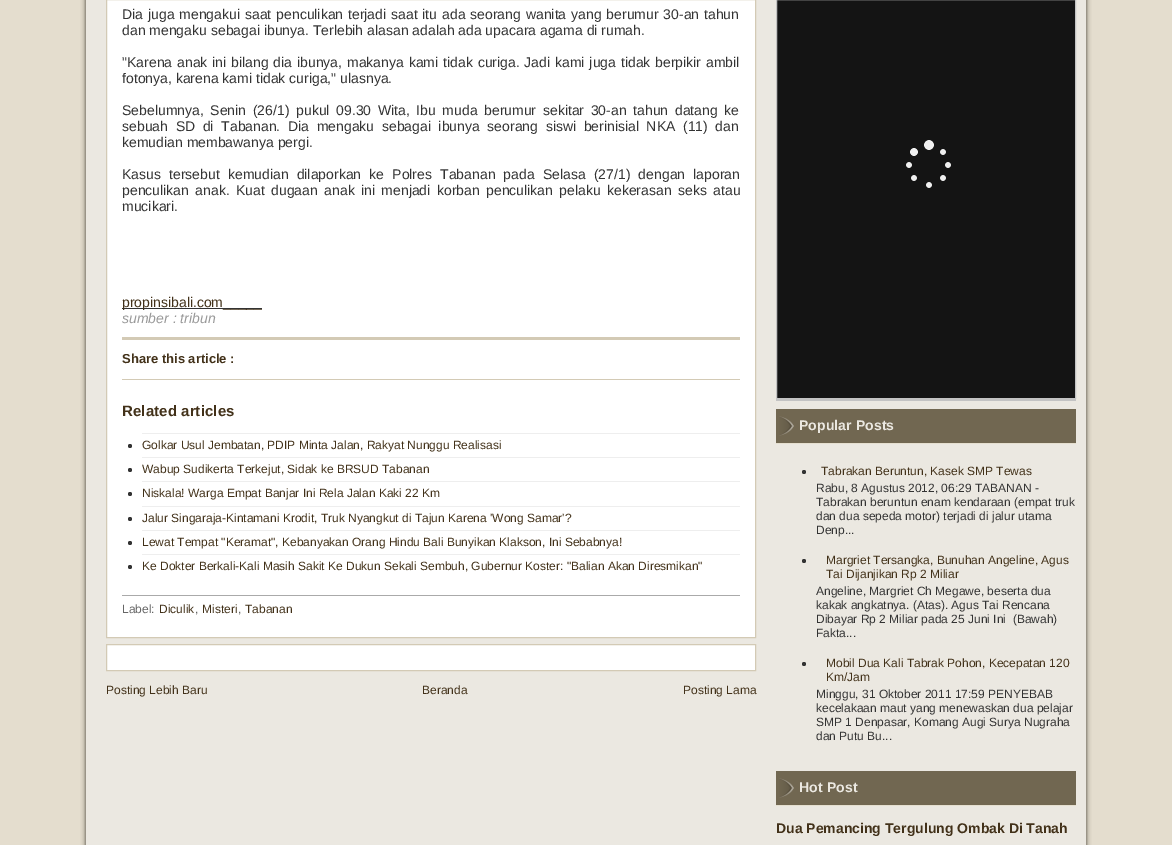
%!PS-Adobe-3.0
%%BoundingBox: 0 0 1172 845
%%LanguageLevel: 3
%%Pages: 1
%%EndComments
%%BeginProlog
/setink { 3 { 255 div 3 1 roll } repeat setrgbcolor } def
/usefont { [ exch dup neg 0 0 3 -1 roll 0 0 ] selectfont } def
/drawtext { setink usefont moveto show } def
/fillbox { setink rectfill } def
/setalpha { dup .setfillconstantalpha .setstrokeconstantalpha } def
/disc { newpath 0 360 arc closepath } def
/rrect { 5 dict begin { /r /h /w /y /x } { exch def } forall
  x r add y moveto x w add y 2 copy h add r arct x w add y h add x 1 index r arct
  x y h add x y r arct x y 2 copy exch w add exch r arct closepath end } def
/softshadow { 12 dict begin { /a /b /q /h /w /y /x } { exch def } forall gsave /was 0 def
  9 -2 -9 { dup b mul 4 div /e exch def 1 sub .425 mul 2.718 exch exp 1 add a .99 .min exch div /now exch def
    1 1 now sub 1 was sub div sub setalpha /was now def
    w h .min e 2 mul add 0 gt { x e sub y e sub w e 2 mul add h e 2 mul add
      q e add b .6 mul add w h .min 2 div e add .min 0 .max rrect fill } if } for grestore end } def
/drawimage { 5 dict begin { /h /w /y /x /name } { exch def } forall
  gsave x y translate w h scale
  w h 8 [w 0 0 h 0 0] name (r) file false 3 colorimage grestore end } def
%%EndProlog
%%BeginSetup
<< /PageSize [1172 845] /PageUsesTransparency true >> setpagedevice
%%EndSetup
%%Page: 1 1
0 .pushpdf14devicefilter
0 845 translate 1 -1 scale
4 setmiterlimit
0 0 1172 845 228 221 206 fillbox
59 54 44 setink
86 -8 1000 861 0 2.5 1 softshadow
86 0 1000 845 235 232 225 fillbox
255 255 255 setink
106.5 -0.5 moveto 755.5 -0.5 lineto 755.5 637.5 lineto 106.5 637.5 lineto closepath gsave fill grestore
211 202 181 setink
stroke
/LiberationSans-Regular 14 usefont
51 51 51 setink
122 19 moveto 1 0 32 (Dia juga mengakui saat penculikan terjadi saat itu ada seorang wanita yang berumur 30-an tahun) widthshow
(dan mengaku sebagai ibunya. Terlebih alasan adalah ada upacara agama di rumah.) 122 35 /LiberationSans-Regular 14 51 51 51 drawtext
122 67 moveto 1 0 32 ("Karena anak ini bilang dia ibunya, makanya kami tidak curiga. Jadi kami juga tidak berpikir ambil) widthshow
(fotonya, karena kami tidak curiga," ulasnya.) 122 83 /LiberationSans-Regular 14 51 51 51 drawtext
122 115 moveto 2.75 0 32 (Sebelumnya, Senin \(26/1\) pukul 09.30 Wita, Ibu muda berumur sekitar 30-an tahun datang ke) widthshow
122 131 moveto 3.75 0 32 (sebuah SD di Tabanan. Dia mengaku sebagai ibunya seorang siswi berinisial NKA \(11\) dan) widthshow
(kemudian membawanya pergi.) 122 147 /LiberationSans-Regular 14 51 51 51 drawtext
122 179 moveto 4.25 0 32 (Kasus tersebut kemudian dilaporkan ke Polres Tabanan pada Selasa \(27/1\) dengan laporan) widthshow
122 195 moveto 2.5 0 32 (penculikan anak. Kuat dugaan anak ini menjadi korban penculikan pelaku kekerasan seks atau) widthshow
(mucikari.) 122 211 /LiberationSans-Regular 14 51 51 51 drawtext
122 308 140 1 51 51 51 fillbox
(propinsibali.com_____) 122 307 /LiberationSans-Regular 14 66 49 25 drawtext
(sumber : tribun) 122 323 /LiberationSans-Italic 14 153 153 153 drawtext
122 337 618 3 211 202 181 fillbox
122 379 618 1 211 202 181 fillbox
(Share this article :) 122 363 /LiberationSans-Bold 13 66 49 25 drawtext
122 595 618 1 170 170 170 fillbox
/LiberationSans-Bold 15 usefont
66 49 25 setink
122 416 moveto 0.1 0 (Related articles) ashow
142 433 598 1 238 238 238 fillbox
51 51 51 setink
130 446 2 disc fill
(Golkar Usul Jembatan, PDIP Minta Jalan, Rakyat Nunggu Realisasi) 142 449 /LiberationSans-Regular 12 66 49 25 drawtext
142 457 598 1 238 238 238 fillbox
51 51 51 setink
130 470 2 disc fill
(Wabup Sudikerta Terkejut, Sidak ke BRSUD Tabanan) 142 473 /LiberationSans-Regular 12 66 49 25 drawtext
142 481 598 1 238 238 238 fillbox
51 51 51 setink
130 494 2 disc fill
(Niskala! Warga Empat Banjar Ini Rela Jalan Kaki 22 Km) 142 497 /LiberationSans-Regular 12 66 49 25 drawtext
142 506 598 1 238 238 238 fillbox
51 51 51 setink
130 519 2 disc fill
(Jalur Singaraja-Kintamani Krodit, Truk Nyangkut di Tajun Karena 'Wong Samar'?) 142 522 /LiberationSans-Regular 12 66 49 25 drawtext
142 530 598 1 238 238 238 fillbox
51 51 51 setink
130 543 2 disc fill
(Lewat Tempat "Keramat", Kebanyakan Orang Hindu Bali Bunyikan Klakson, Ini Sebabnya!) 142 546 /LiberationSans-Regular 12 66 49 25 drawtext
142 554 598 1 238 238 238 fillbox
51 51 51 setink
130 567 2 disc fill
(Ke Dokter Berkali-Kali Masih Sakit Ke Dukun Sekali Sembuh, Gubernur Koster: "Balian Akan Diresmikan") 142 570 /LiberationSans-Regular 12 66 49 25 drawtext
(Label:) 122 613 /LiberationSans-Regular 12 102 102 102 drawtext
(Diculik) 159 613 /LiberationSans-Regular 12 66 49 25 drawtext
(,) 195 613 /LiberationSans-Regular 12 102 102 102 drawtext
(Misteri) 202 613 /LiberationSans-Regular 12 66 49 25 drawtext
(,) 238 613 /LiberationSans-Regular 12 102 102 102 drawtext
(Tabanan) 245 613 /LiberationSans-Regular 12 66 49 25 drawtext
255 255 255 setink
106.5 644.5 moveto 755.5 644.5 lineto 755.5 670.5 lineto 106.5 670.5 lineto closepath gsave fill grestore
211 202 181 setink
stroke
(Posting Lebih Baru) 106 694 /LiberationSans-Regular 12 66 49 25 drawtext
(Beranda) 422 694 /LiberationSans-Regular 12 66 49 25 drawtext
(Posting Lama) 683 694 /LiberationSans-Regular 12 66 49 25 drawtext
777 0 298 398 20 20 20 fillbox
(assets/img1.rgb) 906 140 45 48 drawimage
195 195 195 setink
776.5 -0.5 299 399 rectstroke
776 399 300 2 195 195 195 fillbox
776 409 300 34 113 103 81 fillbox
(assets/img2.rgb) 779 416 15 20 drawimage
776 443 300 1 229 223 207 fillbox
/LiberationSans-Bold 14 usefont
235 232 225 setink
799 430 moveto 0.1 0 (Popular Posts) ashow
51 51 51 setink
804 472 2 disc fill
(Tabrakan Beruntun, Kasek SMP Tewas) 821 475 /LiberationSans-Regular 12 66 49 25 drawtext
(Rabu, 8 Agustus 2012, 06:29 TABANAN -) 816 492 /LiberationSans-Regular 12 51 51 51 drawtext
(Tabrakan beruntun enam kendaraan \(empat truk) 816 506 /LiberationSans-Regular 12 51 51 51 drawtext
(dan dua sepeda motor\) terjadi di jalur utama) 816 520 /LiberationSans-Regular 12 51 51 51 drawtext
(Denp...) 816 534 /LiberationSans-Regular 12 51 51 51 drawtext
804 561 2 disc fill
(Margriet Tersangka, Bunuhan Angeline, Agus) 826 564 /LiberationSans-Regular 12 66 49 25 drawtext
(Tai Dijanjikan Rp 2 Miliar) 826 578 /LiberationSans-Regular 12 66 49 25 drawtext
(Angeline, Margriet Ch Megawe, beserta dua) 816 595 /LiberationSans-Regular 12 51 51 51 drawtext
(kakak angkatnya. \(Atas\). Agus Tai Rencana) 816 609 /LiberationSans-Regular 12 51 51 51 drawtext
(Dibayar Rp 2 Miliar pada 25 Juni Ini  \(Bawah\)) 816 623 /LiberationSans-Regular 12 51 51 51 drawtext
(Fakta...) 816 637 /LiberationSans-Regular 12 51 51 51 drawtext
804 664 2 disc fill
(Mobil Dua Kali Tabrak Pohon, Kecepatan 120) 826 667 /LiberationSans-Regular 12 66 49 25 drawtext
(Km/Jam) 826 681 /LiberationSans-Regular 12 66 49 25 drawtext
(Minggu, 31 Oktober 2011 17:59 PENYEBAB) 816 698 /LiberationSans-Regular 12 51 51 51 drawtext
(kecelakaan maut yang menewaskan dua pelajar) 816 712 /LiberationSans-Regular 12 51 51 51 drawtext
(SMP 1 Denpasar, Komang Augi Surya Nugraha) 816 726 /LiberationSans-Regular 12 51 51 51 drawtext
(dan Putu Bu...) 816 740 /LiberationSans-Regular 12 51 51 51 drawtext
776 771 300 34 113 103 81 fillbox
(assets/img2.rgb) 779 778 15 20 drawimage
776 805 300 1 229 223 207 fillbox
/LiberationSans-Bold 14 usefont
235 232 225 setink
799 792 moveto 0.1 0 (Hot Post) ashow
(Dua Pemancing Tergulung Ombak Di Tanah) 776 833 /LiberationSans-Bold 14 66 49 25 drawtext
.poppdf14devicefilter showpage
%%EOF
